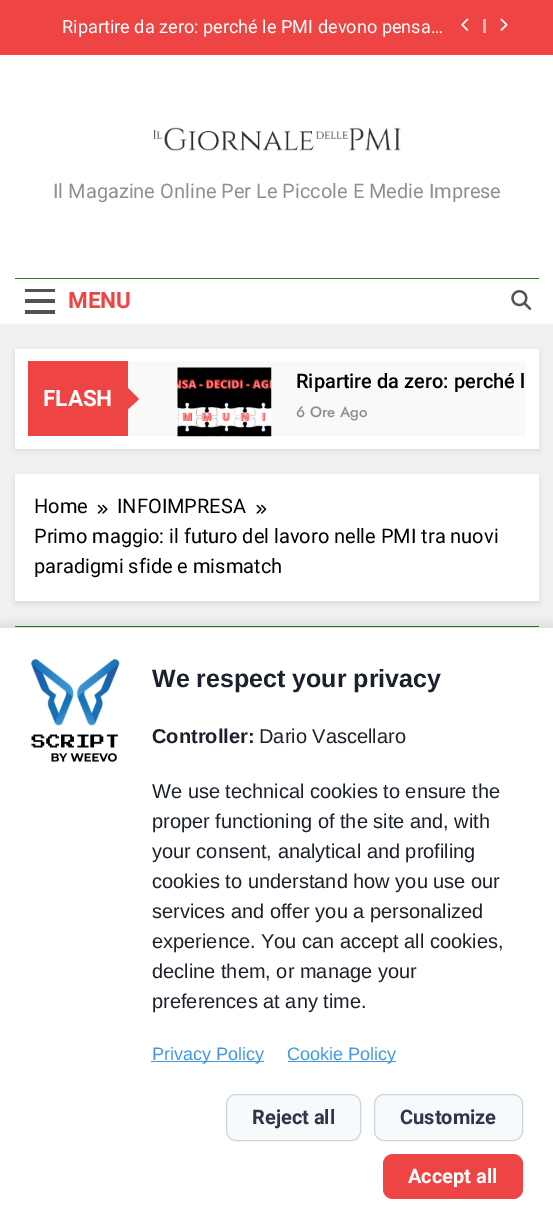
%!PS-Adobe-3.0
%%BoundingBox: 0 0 553 1230
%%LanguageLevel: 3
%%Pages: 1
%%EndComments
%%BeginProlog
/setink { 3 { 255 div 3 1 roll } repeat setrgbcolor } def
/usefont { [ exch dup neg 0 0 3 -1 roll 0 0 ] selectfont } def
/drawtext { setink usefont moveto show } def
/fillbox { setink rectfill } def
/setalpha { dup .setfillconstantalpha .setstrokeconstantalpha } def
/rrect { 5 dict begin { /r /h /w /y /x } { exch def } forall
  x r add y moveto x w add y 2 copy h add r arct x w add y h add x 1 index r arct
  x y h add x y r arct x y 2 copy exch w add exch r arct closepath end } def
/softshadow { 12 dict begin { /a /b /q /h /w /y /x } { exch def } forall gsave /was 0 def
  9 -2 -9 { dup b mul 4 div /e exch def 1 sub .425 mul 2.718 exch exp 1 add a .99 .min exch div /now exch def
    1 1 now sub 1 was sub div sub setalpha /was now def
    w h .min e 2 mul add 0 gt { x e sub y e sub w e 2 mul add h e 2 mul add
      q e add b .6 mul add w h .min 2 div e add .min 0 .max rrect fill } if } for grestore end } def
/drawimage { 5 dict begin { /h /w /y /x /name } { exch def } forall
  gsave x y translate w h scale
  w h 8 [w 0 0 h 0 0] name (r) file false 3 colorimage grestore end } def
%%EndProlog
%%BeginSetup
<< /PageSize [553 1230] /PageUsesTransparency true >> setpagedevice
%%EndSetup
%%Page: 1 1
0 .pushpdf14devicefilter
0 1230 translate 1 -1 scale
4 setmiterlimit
0 0 553 1230 240 241 242 fillbox
0 0 553 55 239 68 68 fillbox
(Ripartire da zero: perché le PMI devono pensa…) 62 33 /Roboto-Regular 18.15 255 255 255 drawtext
(assets/img1.rgb) 461 18 8 13 drawimage
483 19 3 14 249 180 180 fillbox
(assets/img2.rgb) 500 18 8 13 drawimage
0 55 553 269 255 255 255 fillbox
(assets/img3.rgb) 153 127 248 24 drawimage
(Il Magazine Online Per Le Piccole E Medie Imprese) 53 198 /Roboto-Regular 20 143 143 143 drawtext
15 278 524 1 27 132 21 fillbox
25 289 30 3 82 82 82 fillbox
25 299 30 4 82 82 82 fillbox
25 310 30 4 82 82 82 fillbox
(MENU) 68 308 /Roboto-Bold 22.5 239 68 68 drawtext
(assets/img4.rgb) 511 290 21 20 drawimage
0 0 0 setink
15 351 524 100 0 2.5 0.08 softshadow
15 349 524 100 255 255 255 fillbox
28 361 100 75 239 68 68 fillbox
(FLASH) 43 406 /Roboto-Bold 22.5 255 255 255 drawtext
128 361 398 75 249 249 249 fillbox
239 68 68 setink
126 411 moveto 126 386 lineto 139 399 lineto closepath fill
(assets/img5.rgb) 177 367 95 70 drawimage
(Ripartire da zero: perché l) 296 388 /Roboto-Medium 20 0 0 0 drawtext
(6 Ore Ago) 296 417 /Jost-Medium 15 143 143 143 drawtext
0 0 0 setink
15 476 524 128 0 2.5 0.08 softshadow
15 474 524 127 255 255 255 fillbox
(Home) 34 513 /Roboto-Regular 20 0 0 0 drawtext
(assets/img6.rgb) 97 504 11 10 drawimage
(INFOIMPRESA) 117 513 /Roboto-Regular 20 0 0 0 drawtext
(assets/img7.rgb) 256 504 11 10 drawimage
(Primo maggio: il futuro del lavoro nelle PMI tra nuovi) 34 543 /Roboto-Regular 20 0 0 0 drawtext
(paradigmi sfide e mismatch) 34 573 /Roboto-Regular 20 0 0 0 drawtext
15 626 524 1 27 132 21 fillbox
0 0 0 setink
0 625 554 603 0 6 0.1 softshadow
0 628 553 602 255 255 255 fillbox
(assets/img8.rgb) 31 658 89 105 drawimage
(We respect your privacy) 152 687 /LiberationSans-Bold 25 26 32 44 drawtext
(Controller:) 152 743 /LiberationSans-Bold 20 26 32 44 drawtext
(Dario Vascellaro) 259 743 /LiberationSans-Regular 20 26 32 44 drawtext
(We use technical cookies to ensure the) 152 798 /LiberationSans-Regular 20 26 32 44 drawtext
(proper functioning of the site and, with) 152 828 /LiberationSans-Regular 20 26 32 44 drawtext
(your consent, analytical and profiling) 152 858 /LiberationSans-Regular 20 26 32 44 drawtext
(cookies to understand how you use our) 152 888 /LiberationSans-Regular 20 26 32 44 drawtext
(services and offer you a personalized) 152 918 /LiberationSans-Regular 20 26 32 44 drawtext
(experience. You can accept all cookies,) 152 948 /LiberationSans-Regular 20 26 32 44 drawtext
(decline them, or manage your) 152 978 /LiberationSans-Regular 20 26 32 44 drawtext
(preferences at any time.) 152 1008 /LiberationSans-Regular 20 26 32 44 drawtext
151 1061 113 1 66 153 225 fillbox
(Privacy Policy) 152 1060 /LiberationSans-Regular 18 66 153 225 drawtext
288 1061 108 1 66 153 225 fillbox
(Cookie Policy) 287 1060 /LiberationSans-Regular 18 66 153 225 drawtext
247 250 252 setink
226.5 1094.5 134 46 9.5 rrect gsave fill grestore
203 213 224 setink
stroke
(Reject all) 252 1124 /Roboto-Bold 20 45 55 72 drawtext
247 250 252 setink
374.5 1094.5 148 46 9.5 rrect gsave fill grestore
203 213 224 setink
stroke
(Customize) 400 1124 /Roboto-Bold 20 45 55 72 drawtext
239 68 68 setink
383 1154 140 45 10 rrect fill
(Accept all) 408 1183 /Roboto-Bold 20 255 255 255 drawtext
.poppdf14devicefilter showpage
%%EOF
